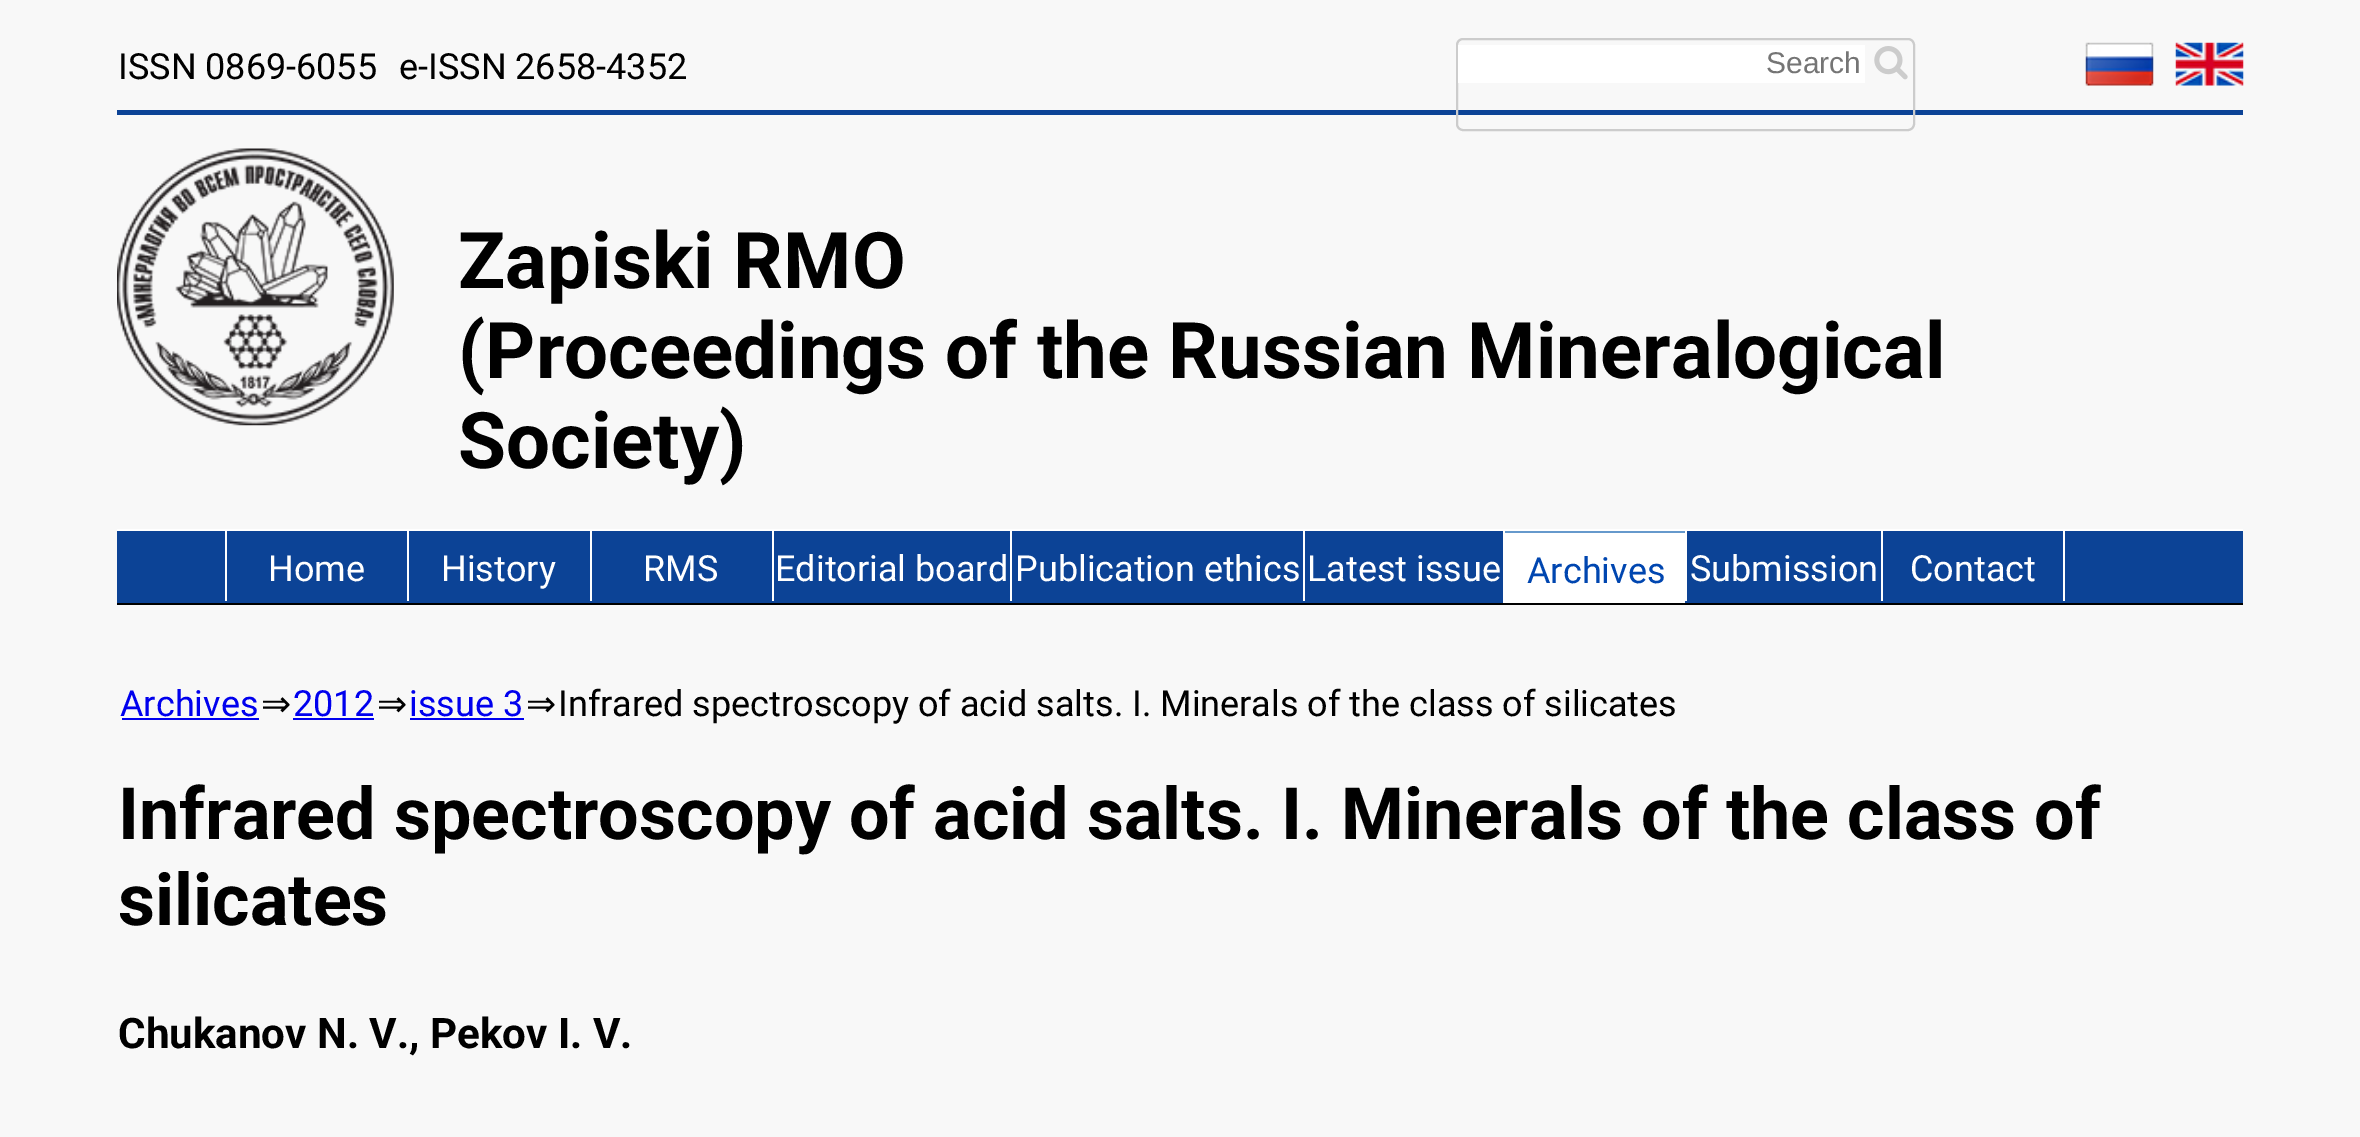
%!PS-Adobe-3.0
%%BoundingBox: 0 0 2360 1137
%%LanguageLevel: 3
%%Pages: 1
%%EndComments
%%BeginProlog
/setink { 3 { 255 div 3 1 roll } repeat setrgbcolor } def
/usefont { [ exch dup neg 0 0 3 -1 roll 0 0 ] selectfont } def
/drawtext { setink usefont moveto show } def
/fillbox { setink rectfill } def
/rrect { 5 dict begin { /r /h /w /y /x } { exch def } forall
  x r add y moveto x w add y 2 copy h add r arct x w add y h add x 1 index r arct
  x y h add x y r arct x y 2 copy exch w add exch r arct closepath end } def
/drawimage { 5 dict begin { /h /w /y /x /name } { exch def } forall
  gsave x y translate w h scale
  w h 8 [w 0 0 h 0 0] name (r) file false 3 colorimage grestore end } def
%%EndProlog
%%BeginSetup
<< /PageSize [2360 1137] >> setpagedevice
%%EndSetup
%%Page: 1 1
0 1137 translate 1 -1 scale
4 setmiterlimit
0 0 2360 1137 248 248 248 fillbox
(ISSN 0869-6055) 118 79 /Roboto-Regular 36 0 0 0 drawtext
(e-ISSN 2658-4352) 399 79 /Roboto-Regular 36 0 0 0 drawtext
117 110 2126 5 12 67 150 fillbox
204 204 204 setink
2 setlinewidth
1457 39 457 91 6 rrect stroke
1458 45 407 38 255 255 255 fillbox
(Search) 1766 73 /LiberationSans-Regular 30 117 117 117 drawtext
(assets/img1.rgb) 1874 46 34 34 drawimage
(assets/img2.rgb) 2085 42 69 44 drawimage
(assets/img3.rgb) 2175 42 69 44 drawimage
(assets/img4.rgb) 117 148 277 278 drawimage
(Zapiski RMO) 458 288 /Roboto-Bold 78 0 0 0 drawtext
(\(Proceedings of the Russian Mineralogical) 458 378 /Roboto-Bold 78 0 0 0 drawtext
(Society\)) 458 468 /Roboto-Bold 78 0 0 0 drawtext
117 531 2126 72 12 67 150 fillbox
117 529 2126 2 255 255 255 fillbox
117 603 2126 2 0 0 0 fillbox
225 531 2 70 255 255 255 fillbox
(Home) 268 581 /Roboto-Regular 36 255 255 255 drawtext
407 531 2 70 255 255 255 fillbox
(History) 441 581 /Roboto-Regular 36 255 255 255 drawtext
590 531 2 70 255 255 255 fillbox
(RMS) 643 581 /Roboto-Regular 36 255 255 255 drawtext
772 531 2 70 255 255 255 fillbox
(Editorial board) 775 581 /Roboto-Regular 36 255 255 255 drawtext
1010 531 2 70 255 255 255 fillbox
(Publication ethics) 1015 581 /Roboto-Regular 36 255 255 255 drawtext
1303 531 2 70 255 255 255 fillbox
(Latest issue) 1307 581 /Roboto-Regular 36 255 255 255 drawtext
1503 531 2 72 255 255 255 fillbox
1505 533 180 70 255 255 255 fillbox
1505 531 180 2 102 153 204 fillbox
(Archives) 1527 583 /Roboto-Regular 36 0 70 176 drawtext
1685 531 2 70 255 255 255 fillbox
(Submission) 1690 581 /Roboto-Regular 36 255 255 255 drawtext
2063 531 2 70 255 255 255 fillbox
1881 531 2 70 255 255 255 fillbox
(Contact) 1910 581 /Roboto-Regular 36 255 255 255 drawtext
(Archives) 120 716 /Roboto-Regular 36 0 0 238 drawtext
122 718 137 2 0 0 238 fillbox
(⇒) 261 716 /DejaVuSans-Regular 36 0 0 0 drawtext
(2012) 293 716 /Roboto-Regular 36 0 0 238 drawtext
293 718 81 2 0 0 238 fillbox
(⇒) 377 716 /DejaVuSans-Regular 36 0 0 0 drawtext
(issue 3) 409 716 /Roboto-Regular 36 0 0 238 drawtext
410 718 114 2 0 0 238 fillbox
(⇒) 526 716 /DejaVuSans-Regular 36 0 0 0 drawtext
(Infrared spectroscopy of acid salts. I. Minerals of the class of silicates) 558 716 /Roboto-Regular 36 0 0 0 drawtext
(Infrared spectroscopy of acid salts. I. Minerals of the class of) 118 839 /Roboto-Bold 72 0 0 0 drawtext
(silicates) 118 925 /Roboto-Bold 72 0 0 0 drawtext
(Chukanov N. V., Pekov I. V.) 118 1048 /Roboto-Bold 42.1 0 0 0 drawtext
showpage
%%EOF
